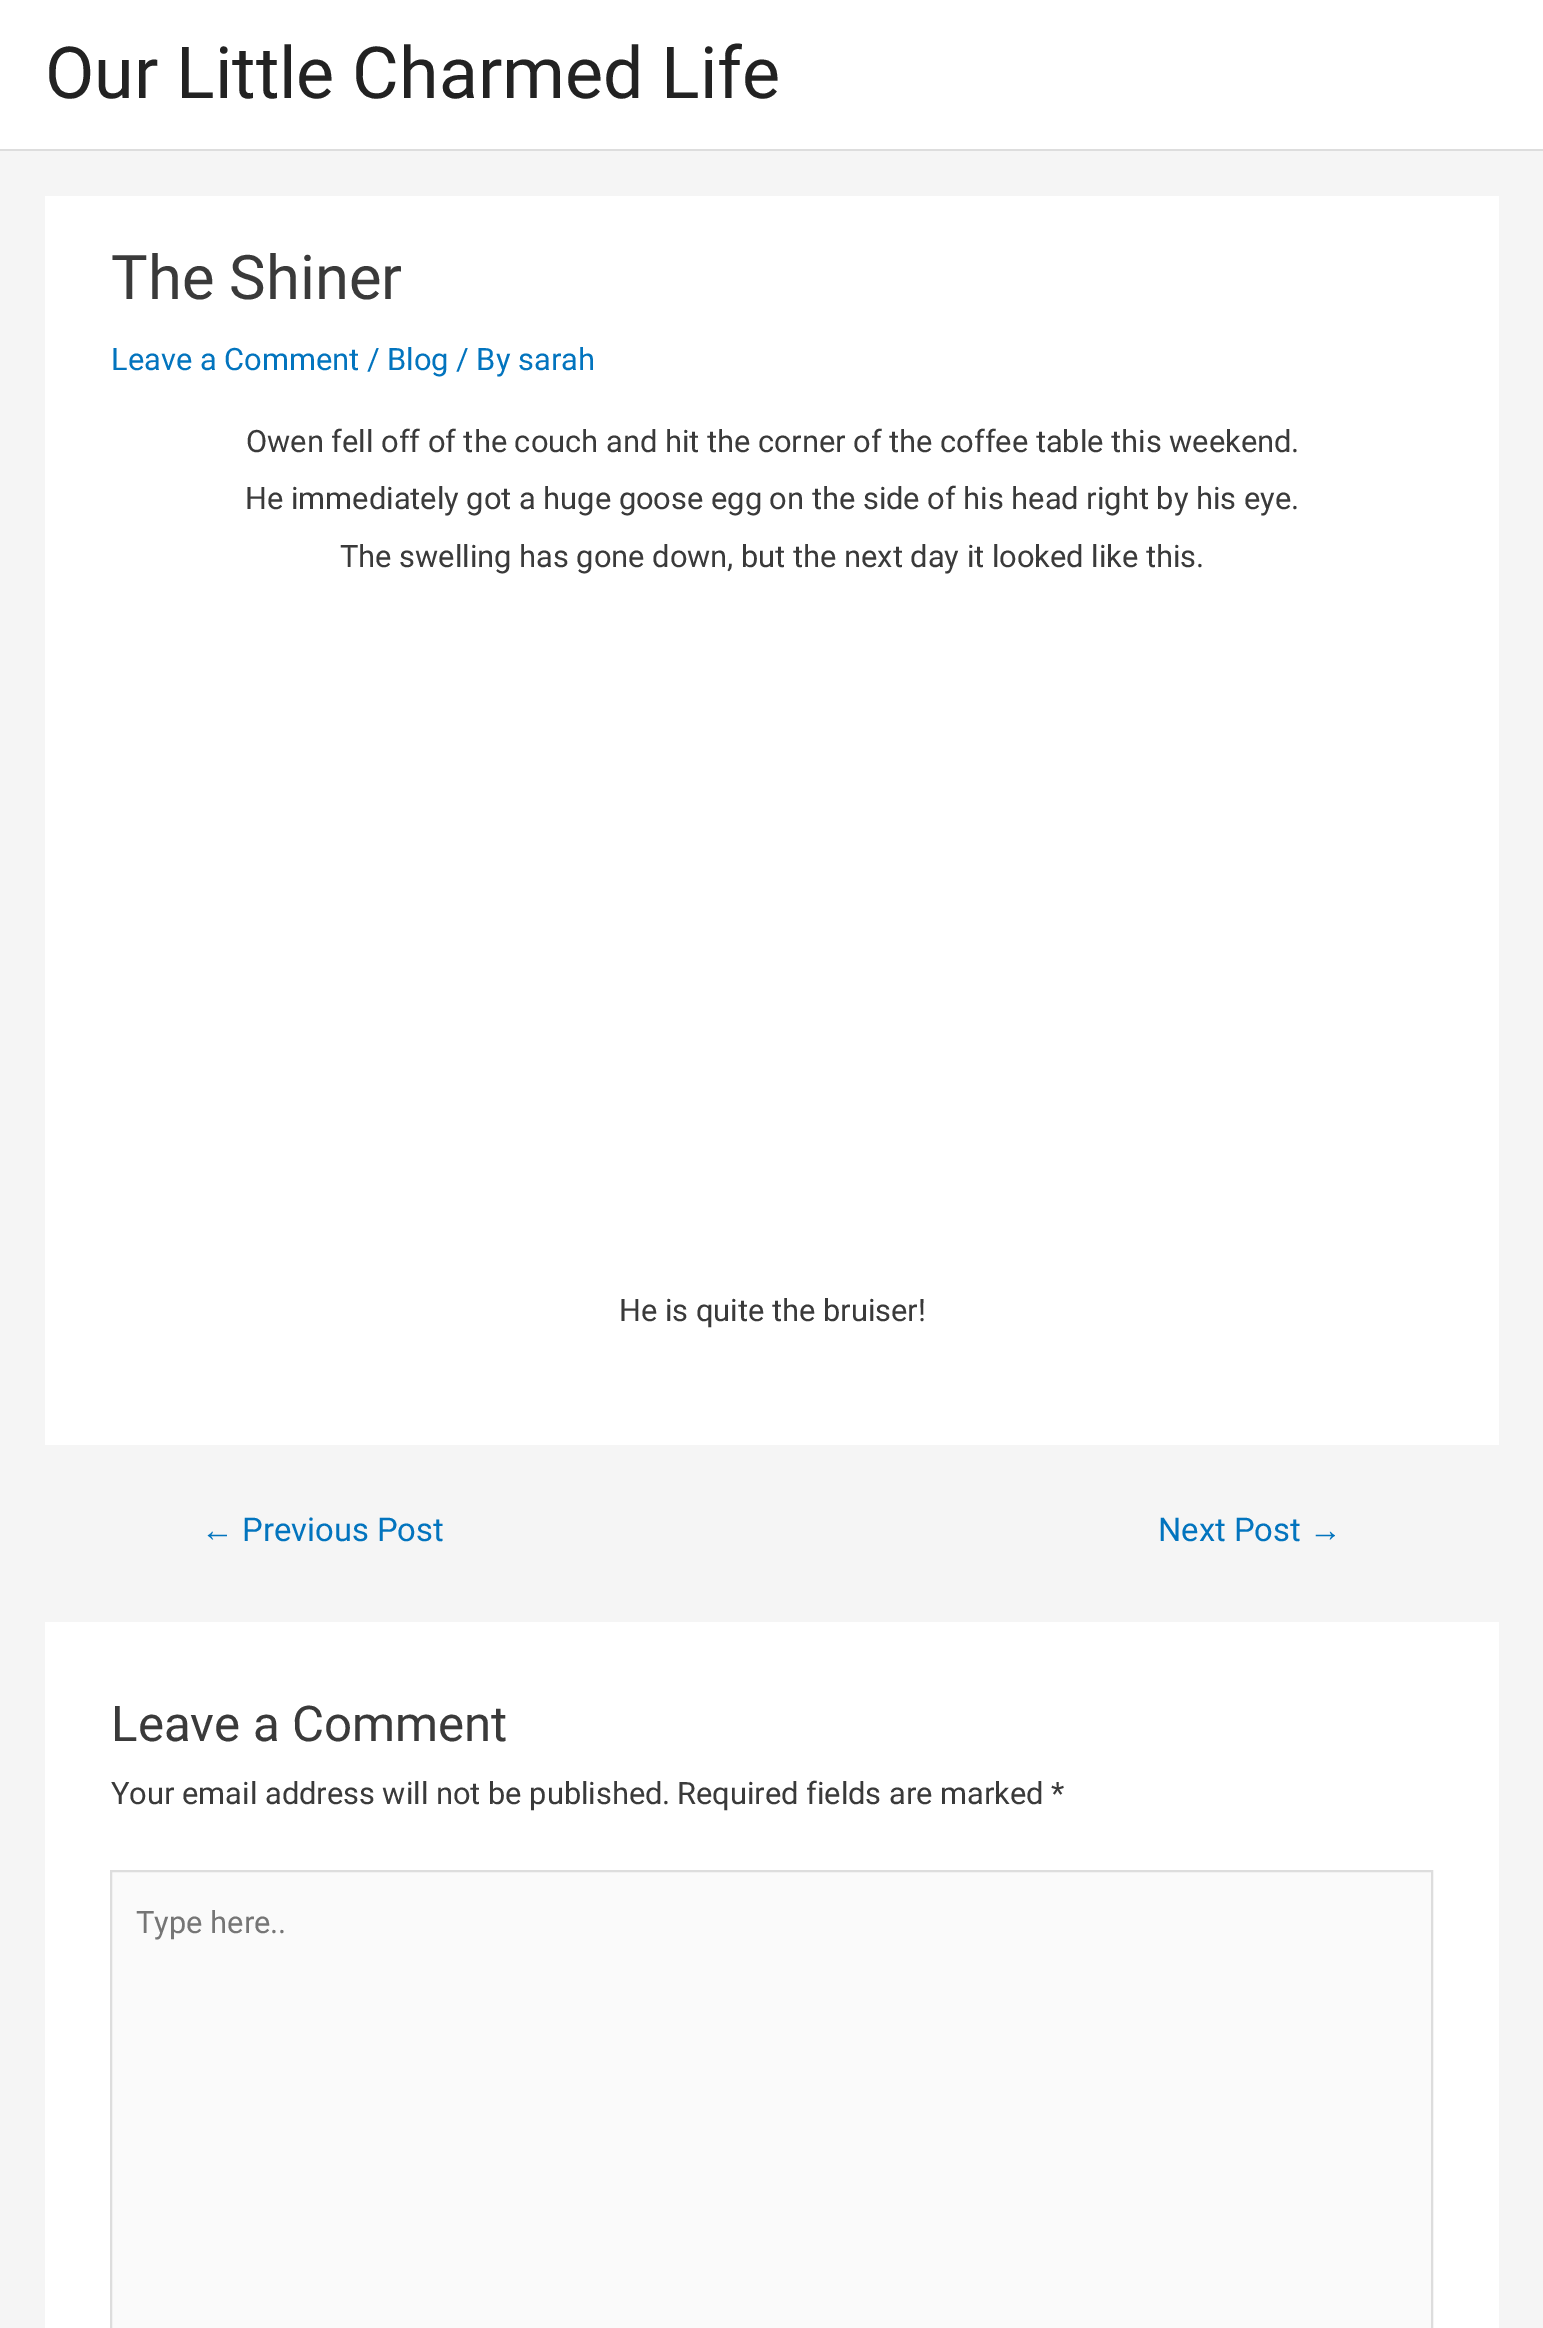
%!PS-Adobe-3.0
%%BoundingBox: 0 0 1543 2328
%%LanguageLevel: 3
%%Pages: 1
%%EndComments
%%BeginProlog
/setink { 3 { 255 div 3 1 roll } repeat setrgbcolor } def
/usefont { [ exch dup neg 0 0 3 -1 roll 0 0 ] selectfont } def
/drawtext { setink usefont moveto show } def
/fillbox { setink rectfill } def
%%EndProlog
%%BeginSetup
<< /PageSize [1543 2328] >> setpagedevice
%%EndSetup
%%Page: 1 1
0 2328 translate 1 -1 scale
4 setmiterlimit
0 0 1543 2328 245 245 245 fillbox
0 0 1543 149 255 255 255 fillbox
0 149 1543 2 221 221 221 fillbox
(Our Little Charmed Life) 45 98 /Roboto-Regular 71.75 34 34 34 drawtext
45 196 1454 1249 255 255 255 fillbox
(The Shiner) 111 299 /Roboto-Regular 61.5 58 58 58 drawtext
(Leave a Comment / Blog / By sarah) 111 370 /Roboto-Regular 30.8 2 116 190 drawtext
(Owen fell off of the couch and hit the corner of the coffee table this weekend.) 246 452 /Roboto-Regular 30.8 58 58 58 drawtext
(He immediately got a huge goose egg on the side of his head right by his eye.) 245 509 /Roboto-Regular 30.8 58 58 58 drawtext
(The swelling has gone down, but the next day it looked like this.) 340 567 /Roboto-Regular 30.8 58 58 58 drawtext
(He is quite the bruiser!) 619 1321 /Roboto-Regular 30.8 58 58 58 drawtext
(←) 201 1541 /LiberationSans-Regular 32.75 2 116 190 drawtext
(Previous Post) 242 1541 /Roboto-Regular 32.75 2 116 190 drawtext
(Next Post) 1158 1541 /Roboto-Regular 32.75 2 116 190 drawtext
(→) 1309 1541 /LiberationSans-Regular 32.75 2 116 190 drawtext
45 1622 1454 706 255 255 255 fillbox
(Leave a Comment) 111 1741 /Roboto-Regular 49.25 58 58 58 drawtext
(Your email address will not be published.) 111 1804 /Roboto-Regular 30.8 58 58 58 drawtext
(Required fields are marked *) 677 1804 /Roboto-Regular 30.8 58 58 58 drawtext
250 250 250 setink
111 1871 moveto 1432 1871 lineto 1432 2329 lineto 111 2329 lineto closepath gsave fill grestore
221 221 221 setink
2 setlinewidth
stroke
(Type here..) 136 1933 /Roboto-Regular 30.8 117 117 117 drawtext
showpage
%%EOF
